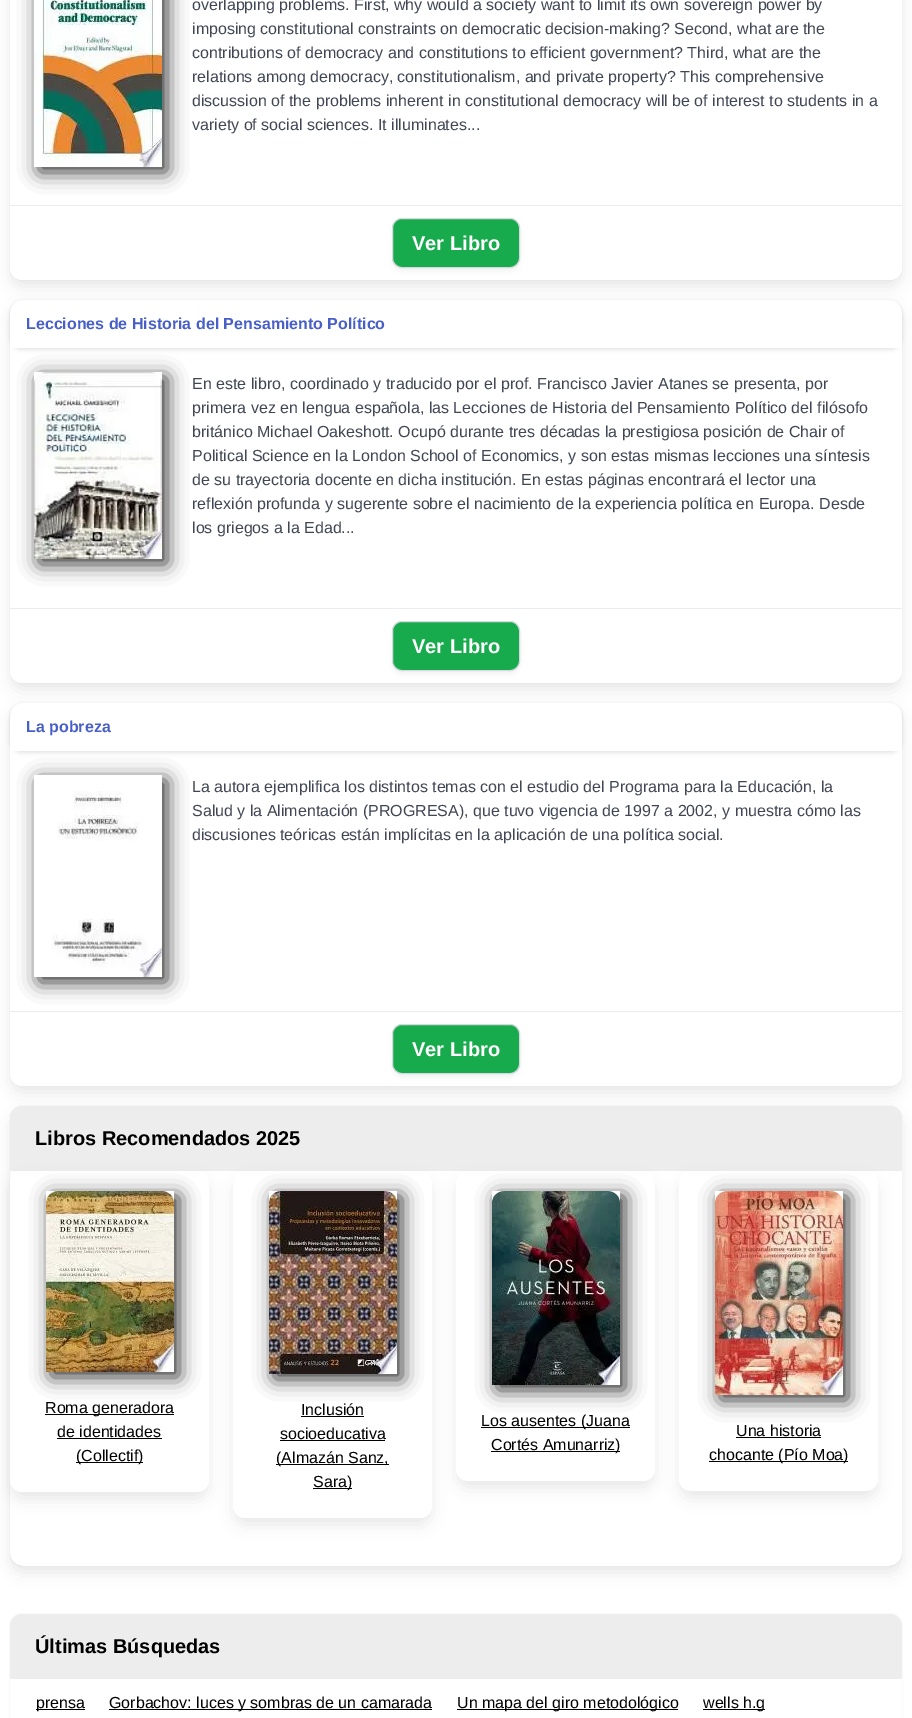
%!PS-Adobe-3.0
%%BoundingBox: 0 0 912 1718
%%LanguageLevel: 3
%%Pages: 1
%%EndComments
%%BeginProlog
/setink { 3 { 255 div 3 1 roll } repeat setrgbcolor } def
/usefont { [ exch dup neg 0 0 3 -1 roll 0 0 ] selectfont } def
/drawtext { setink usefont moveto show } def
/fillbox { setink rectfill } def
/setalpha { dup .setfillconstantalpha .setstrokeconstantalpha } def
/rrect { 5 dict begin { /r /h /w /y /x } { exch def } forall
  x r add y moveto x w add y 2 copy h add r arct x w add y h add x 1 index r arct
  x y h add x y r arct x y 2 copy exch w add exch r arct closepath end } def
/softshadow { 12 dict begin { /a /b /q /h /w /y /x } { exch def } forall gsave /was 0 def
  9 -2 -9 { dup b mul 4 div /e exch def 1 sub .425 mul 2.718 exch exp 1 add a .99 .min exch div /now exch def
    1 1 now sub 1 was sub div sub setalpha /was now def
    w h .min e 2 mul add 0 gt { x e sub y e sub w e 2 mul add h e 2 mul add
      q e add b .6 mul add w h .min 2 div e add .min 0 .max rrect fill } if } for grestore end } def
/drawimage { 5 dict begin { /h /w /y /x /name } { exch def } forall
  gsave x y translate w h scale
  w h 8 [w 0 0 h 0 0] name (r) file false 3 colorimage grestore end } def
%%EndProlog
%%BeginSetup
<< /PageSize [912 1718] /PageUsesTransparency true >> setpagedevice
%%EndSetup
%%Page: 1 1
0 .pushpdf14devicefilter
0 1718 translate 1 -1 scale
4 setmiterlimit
0 0 912 1718 255 255 255 fillbox
250 250 250 setink
9.5 -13.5 893 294 12.5 rrect stroke
9 10 12 setink
12 -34 888 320 10 8 0.1 softshadow
255 255 255 setink
10 -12 892 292 12 rrect fill
51 51 51 setink
39 -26 128 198 0 10 1 softshadow
(assets/img1.rgb) 34 0 128 167 drawimage
(overlapping problems. First, why would a society want to limit its own sovereign power by) 192 10 /LiberationSans-Regular 16 64 70 84 drawtext
(imposing constitutional constraints on democratic decision-making? Second, what are the) 192 34 /LiberationSans-Regular 16 64 70 84 drawtext
(contributions of democracy and constitutions to efficient government? Third, what are the) 192 58 /LiberationSans-Regular 16 64 70 84 drawtext
(relations among democracy, constitutionalism, and private property? This comprehensive) 192 82 /LiberationSans-Regular 16 64 70 84 drawtext
(discussion of the problems inherent in constitutional democracy will be of interest to students in a) 192 106 /LiberationSans-Regular 16 64 70 84 drawtext
(variety of social sciences. It illuminates...) 192 130 /LiberationSans-Regular 16 64 70 84 drawtext
10 205 892 1 235 236 240 fillbox
51 51 51 setink
392 221 128 50 10 2.5 0.05 softshadow
23 171 77 setink
392.5 218.5 127 49 9.5 rrect gsave fill grestore
214 217 224 setink
stroke
(Ver Libro) 412 250 /LiberationSans-Bold 20 255 255 255 drawtext
250 250 250 setink
9.5 299.5 893 384 12.5 rrect stroke
9 10 12 setink
12 310 888 379 10 8 0.1 softshadow
255 255 255 setink
10 300 892 383 12 rrect fill
gsave
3 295 moveto 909 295 lineto 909 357 lineto 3 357 lineto closepath 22 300 moveto 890 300 lineto 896.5 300 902 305.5 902 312 curveto 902 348 lineto 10 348 lineto 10 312 lineto 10 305.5 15.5 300 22 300 curveto closepath eoclip newpath
9 10 12 setink
10 302 892 48 12 2 0.1 softshadow
grestore
(Lecciones de Historia del Pensamiento Político) 26 329 /LiberationSans-Bold 16 72 95 199 drawtext
gsave
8 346 moveto 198 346 lineto 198 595 lineto 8 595 lineto closepath 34 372 moveto 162 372 lineto 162 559 lineto 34 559 lineto closepath eoclip newpath
51 51 51 setink
39 377 128 187 0 10 1 softshadow
grestore
(assets/img2.rgb) 34 372 128 187 drawimage
(En este libro, coordinado y traducido por el prof. Francisco Javier Atanes se presenta, por) 192 389 /LiberationSans-Regular 16 64 70 84 drawtext
(primera vez en lengua española, las Lecciones de Historia del Pensamiento Político del filósofo) 192 413 /LiberationSans-Regular 16 64 70 84 drawtext
(británico Michael Oakeshott. Ocupó durante tres décadas la prestigiosa posición de Chair of) 192 437 /LiberationSans-Regular 16 64 70 84 drawtext
(Political Science en la London School of Economics, y son estas mismas lecciones una síntesis) 192 461 /LiberationSans-Regular 16 64 70 84 drawtext
(de su trayectoria docente en dicha institución. En estas páginas encontrará el lector una) 192 485 /LiberationSans-Regular 16 64 70 84 drawtext
(reflexión profunda y sugerente sobre el nacimiento de la experiencia política en Europa. Desde) 192 509 /LiberationSans-Regular 16 64 70 84 drawtext
(los griegos a la Edad...) 192 533 /LiberationSans-Regular 16 64 70 84 drawtext
10 608 892 1 235 236 240 fillbox
51 51 51 setink
392 624 128 50 10 2.5 0.05 softshadow
23 171 77 setink
392.5 621.5 127 49 9.5 rrect gsave fill grestore
214 217 224 setink
stroke
(Ver Libro) 412 653 /LiberationSans-Bold 20 255 255 255 drawtext
250 250 250 setink
9.5 702.5 893 384 12.5 rrect stroke
9.5 1105.5 893 461 12.5 rrect stroke
gsave
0 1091 moveto 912 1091 lineto 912 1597 lineto 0 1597 lineto closepath 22 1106 moveto 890 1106 lineto 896.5 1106 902 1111.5 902 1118 curveto 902 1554 lineto 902 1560.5 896.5 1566 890 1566 curveto 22 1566 lineto 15.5 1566 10 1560.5 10 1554 curveto 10 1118 lineto 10 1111.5 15.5 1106 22 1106 curveto closepath eoclip newpath
9 10 12 setink
12 1116 888 456 10 8 0.1 softshadow
grestore
237 237 237 setink
22 1106 moveto 890 1106 lineto 896.5 1106 902 1111.5 902 1118 curveto 902 1171 lineto 10 1171 lineto 10 1118 lineto 10 1111.5 15.5 1106 22 1106 curveto closepath fill
9 10 12 setink
12 713 888 379 10 8 0.1 softshadow
255 255 255 setink
10 703 892 383 12 rrect fill
gsave
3 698 moveto 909 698 lineto 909 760 lineto 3 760 lineto closepath 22 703 moveto 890 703 lineto 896.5 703 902 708.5 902 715 curveto 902 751 lineto 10 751 lineto 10 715 lineto 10 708.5 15.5 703 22 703 curveto closepath eoclip newpath
9 10 12 setink
10 705 892 48 12 2 0.1 softshadow
grestore
(La pobreza) 26 732 /LiberationSans-Bold 16 72 95 199 drawtext
10 1011 892 1 235 236 240 fillbox
gsave
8 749 moveto 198 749 lineto 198 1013 lineto 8 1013 lineto closepath 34 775 moveto 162 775 lineto 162 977 lineto 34 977 lineto closepath eoclip newpath
51 51 51 setink
39 780 128 202 0 10 1 softshadow
grestore
(assets/img3.rgb) 51 791 111 186 drawimage
(La autora ejemplifica los distintos temas con el estudio del Programa para la Educación, la) 192 792 /LiberationSans-Regular 16 64 70 84 drawtext
(Salud y la Alimentación \(PROGRESA\), que tuvo vigencia de 1997 a 2002, y muestra cómo las) 192 816 /LiberationSans-Regular 16 64 70 84 drawtext
(discusiones teóricas están implícitas en la aplicación de una política social.) 192 840 /LiberationSans-Regular 16 64 70 84 drawtext
51 51 51 setink
392 1027 128 50 10 2.5 0.05 softshadow
23 171 77 setink
392.5 1024.5 127 49 9.5 rrect gsave fill grestore
214 217 224 setink
stroke
(Ver Libro) 412 1056 /LiberationSans-Bold 20 255 255 255 drawtext
(Libros Recomendados 2025) 35 1145 /LiberationSans-Bold 20 0 0 0 drawtext
9 10 12 setink
12 1181 195 317 10 8 0.1 softshadow
255 255 255 setink
10 1171 199 321 12 rrect fill
gsave
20 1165 moveto 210 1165 lineto 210 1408 lineto 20 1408 lineto closepath 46 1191 moveto 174 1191 lineto 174 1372 lineto 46 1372 lineto closepath eoclip newpath
51 51 51 setink
51 1196 128 181 0 10 1 softshadow
grestore
(assets/img4.rgb) 46 1191 128 181 drawimage
45 1414 129 1 0 0 0 fillbox
(Roma generadora) 45 1413 /LiberationSans-Regular 16 0 0 0 drawtext
(de identidades) 57 1437 /LiberationSans-Regular 16 0 0 0 drawtext
57 1438 105 1 0 0 0 fillbox
76 1462 67 1 0 0 0 fillbox
(\(Collectif\)) 76 1461 /LiberationSans-Regular 16 0 0 0 drawtext
9 10 12 setink
235 1181 195 343 10 8 0.1 softshadow
255 255 255 setink
233 1171 199 347 12 rrect fill
gsave
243 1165 moveto 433 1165 lineto 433 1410 lineto 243 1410 lineto closepath 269 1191 moveto 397 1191 lineto 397 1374 lineto 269 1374 lineto closepath eoclip newpath
51 51 51 setink
274 1196 128 183 0 10 1 softshadow
grestore
(assets/img5.rgb) 269 1191 128 183 drawimage
(Inclusión) 301 1415 /LiberationSans-Regular 16 0 0 0 drawtext
301 1416 63 1 0 0 0 fillbox
(socioeducativa) 280 1439 /LiberationSans-Regular 16 0 0 0 drawtext
280 1440 105 1 0 0 0 fillbox
276 1464 113 1 0 0 0 fillbox
(\(Almazán Sanz,) 276 1463 /LiberationSans-Regular 16 0 0 0 drawtext
313 1488 39 1 0 0 0 fillbox
(Sara\)) 313 1487 /LiberationSans-Regular 16 0 0 0 drawtext
9 10 12 setink
458 1181 195 306 10 8 0.1 softshadow
255 255 255 setink
456 1171 199 310 12 rrect fill
gsave
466 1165 moveto 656 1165 lineto 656 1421 lineto 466 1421 lineto closepath 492 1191 moveto 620 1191 lineto 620 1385 lineto 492 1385 lineto closepath eoclip newpath
51 51 51 setink
497 1196 128 194 0 10 1 softshadow
grestore
(assets/img6.rgb) 492 1191 128 194 drawimage
481 1427 149 1 0 0 0 fillbox
(Los ausentes \(Juana) 481 1426 /LiberationSans-Regular 16 0 0 0 drawtext
491 1451 129 1 0 0 0 fillbox
(Cortés Amunarriz\)) 491 1450 /LiberationSans-Regular 16 0 0 0 drawtext
9 10 12 setink
681 1181 195 316 10 8 0.1 softshadow
255 255 255 setink
679 1171 199 320 12 rrect fill
gsave
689 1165 moveto 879 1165 lineto 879 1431 lineto 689 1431 lineto closepath 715 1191 moveto 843 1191 lineto 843 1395 lineto 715 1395 lineto closepath eoclip newpath
51 51 51 setink
720 1196 128 204 0 10 1 softshadow
grestore
(assets/img7.rgb) 715 1191 128 204 drawimage
(Una historia) 736 1436 /LiberationSans-Regular 16 0 0 0 drawtext
736 1437 85 1 0 0 0 fillbox
709 1461 139 1 0 0 0 fillbox
(chocante \(Pío Moa\)) 709 1460 /LiberationSans-Regular 16 0 0 0 drawtext
250 250 250 setink
9.5 1613.5 893 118 12.5 rrect stroke
237 237 237 setink
22 1614 moveto 890 1614 lineto 896.5 1614 902 1619.5 902 1626 curveto 902 1679 lineto 10 1679 lineto 10 1626 lineto 10 1619.5 15.5 1614 22 1614 curveto closepath fill
(Últimas Búsquedas) 35 1653 /LiberationSans-Bold 20 0 0 0 drawtext
36 1709 49 1 0 0 0 fillbox
(prensa) 36 1708 /LiberationSans-Regular 16 0 0 0 drawtext
109 1709 323 1 0 0 0 fillbox
(Gorbachov: luces y sombras de un camarada) 109 1708 /LiberationSans-Regular 16 0 0 0 drawtext
457 1709 221 1 0 0 0 fillbox
(Un mapa del giro metodológico) 457 1708 /LiberationSans-Regular 16 0 0 0 drawtext
703 1709 62 1 0 0 0 fillbox
(wells h.g) 703 1708 /LiberationSans-Regular 16 0 0 0 drawtext
.poppdf14devicefilter showpage
%%EOF
